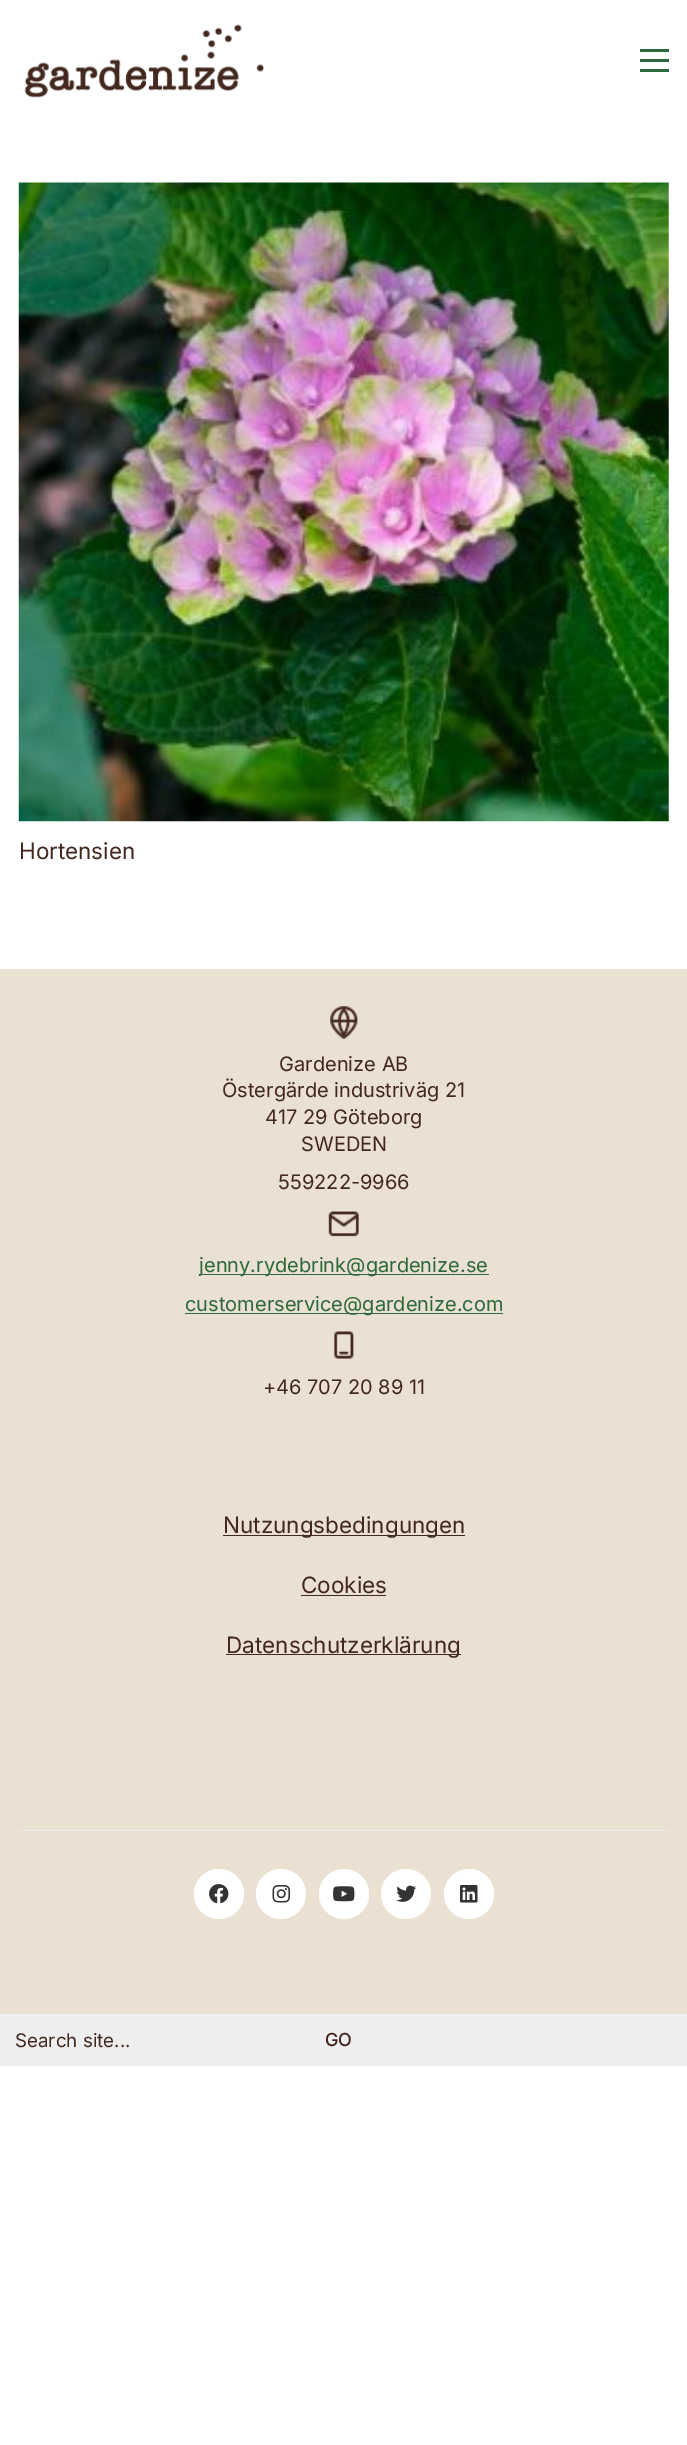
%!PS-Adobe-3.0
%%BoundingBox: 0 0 687 2445
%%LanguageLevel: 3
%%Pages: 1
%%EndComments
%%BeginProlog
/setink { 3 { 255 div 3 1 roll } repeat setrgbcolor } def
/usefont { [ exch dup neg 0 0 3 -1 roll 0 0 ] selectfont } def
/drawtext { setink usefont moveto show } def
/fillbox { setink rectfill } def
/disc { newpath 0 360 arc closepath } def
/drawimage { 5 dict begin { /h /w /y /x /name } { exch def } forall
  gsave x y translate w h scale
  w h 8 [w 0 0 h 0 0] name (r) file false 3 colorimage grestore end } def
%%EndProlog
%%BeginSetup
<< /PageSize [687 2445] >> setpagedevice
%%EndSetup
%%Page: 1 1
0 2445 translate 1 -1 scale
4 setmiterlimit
0 0 687 2445 255 255 255 fillbox
(assets/img1.rgb) 24 24 240 74 drawimage
640 49 29 3 46 104 62 fillbox
640 59 29 3 46 104 62 fillbox
640 69 29 3 46 104 62 fillbox
(assets/img2.rgb) 18 182 651 640 drawimage
(Hortensien) 19 859 /Inter-Regular 22.5 66 40 31 drawtext
0 969 687 1045 234 225 211 fillbox
(assets/img3.rgb) 330 1006 28 33 drawimage
(Gardenize AB) 279 1071 /Inter-Regular 20 66 40 31 drawtext
(Östergärde industriväg 21) 222 1097 /Inter-Regular 20 66 40 31 drawtext
(417 29 Göteborg) 265 1124 /Inter-Regular 20 66 40 31 drawtext
(SWEDEN) 301 1151 /Inter-Regular 20 66 40 31 drawtext
(559222-9966) 278 1189 /Inter-Regular 20 66 40 31 drawtext
(assets/img4.rgb) 328 1211 31 26 drawimage
199 1274 290 1 46 104 62 fillbox
(jenny.rydebrink@gardenize.se) 199 1272 /Inter-Regular 20 46 104 62 drawtext
185 1313 318 1 46 104 62 fillbox
(customerservice@gardenize.com) 185 1311 /Inter-Regular 20 46 104 62 drawtext
(assets/img5.rgb) 334 1331 20 28 drawimage
(+46 707 20 89 11) 263 1394 /Inter-Regular 20 66 40 31 drawtext
223 1535 242 1 66 40 31 fillbox
(Nutzungsbedingungen) 223 1533 /Inter-Regular 22.5 66 40 31 drawtext
(Cookies) 301 1593 /Inter-Regular 22.5 66 40 31 drawtext
301 1595 85 1 66 40 31 fillbox
226 1654 235 1 66 40 31 fillbox
(Datenschutzerklärung) 226 1653 /Inter-Regular 22.5 66 40 31 drawtext
19 1830 650 1 238 238 238 fillbox
255 255 255 setink
219 1894 25 disc fill
(assets/img6.rgb) 209 1884 20 20 drawimage
281 1894 25 disc fill
(assets/img7.rgb) 272 1885 18 18 drawimage
344 1894 25 disc fill
(assets/img8.rgb) 333 1886 22 16 drawimage
406 1894 25 disc fill
(assets/img9.rgb) 396 1885 21 17 drawimage
469 1894 25 disc fill
(assets/img10.rgb) 460 1885 18 18 drawimage
0 2014 687 52 238 238 238 fillbox
(Search site...) 15 2047 /Inter-Regular 18.75 66 40 31 drawtext
(GO) 325 2046 /Inter-Medium 18 66 40 31 drawtext
showpage
%%EOF
